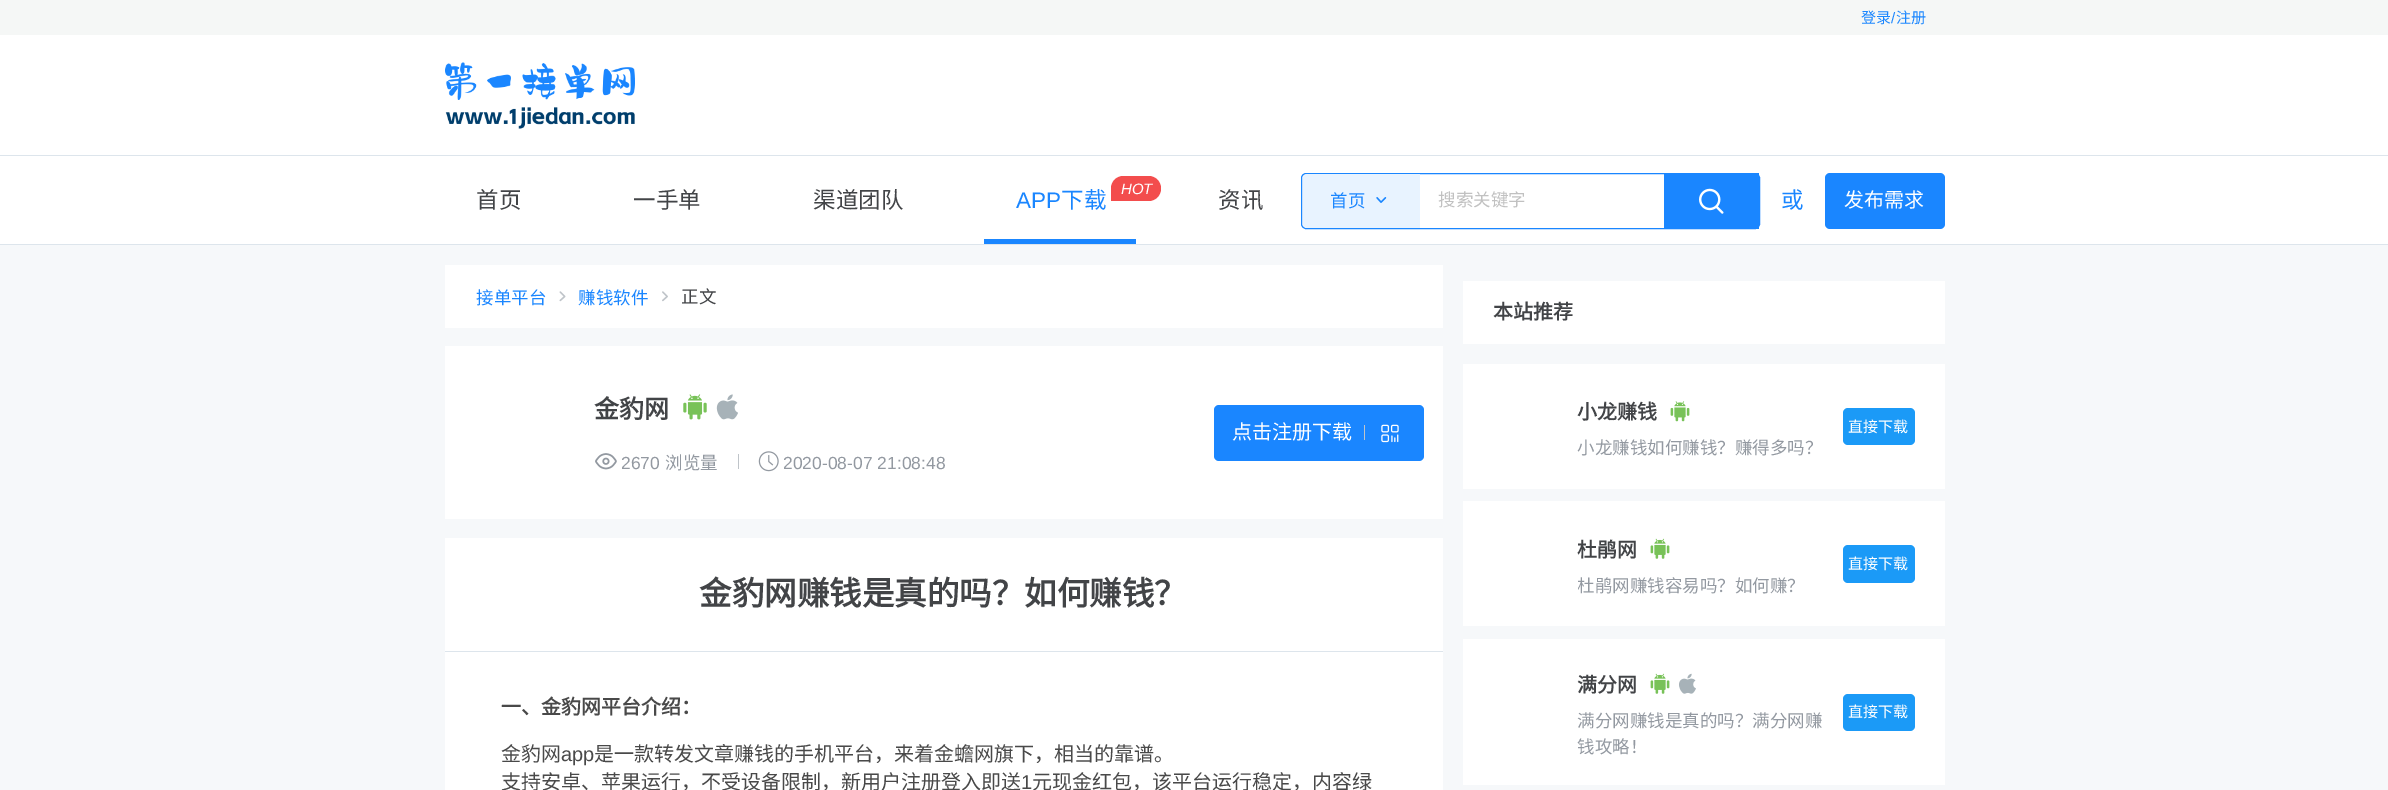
%!PS-Adobe-3.0
%%BoundingBox: 0 0 2388 790
%%LanguageLevel: 3
%%Pages: 1
%%EndComments
%%BeginProlog
/setink { 3 { 255 div 3 1 roll } repeat setrgbcolor } def
/usefont { [ exch dup neg 0 0 3 -1 roll 0 0 ] selectfont } def
/drawtext { setink usefont moveto show } def
/fillbox { setink rectfill } def
/rrect { 5 dict begin { /r /h /w /y /x } { exch def } forall
  x r add y moveto x w add y 2 copy h add r arct x w add y h add x 1 index r arct
  x y h add x y r arct x y 2 copy exch w add exch r arct closepath end } def
/drawimage { 5 dict begin { /h /w /y /x /name } { exch def } forall
  gsave x y translate w h scale
  w h 8 [w 0 0 h 0 0] name (r) file false 3 colorimage grestore end } def
%%EndProlog
%%BeginSetup
<< /PageSize [2388 790] >> setpagedevice
%%EndSetup
%%Page: 1 1
0 790 translate 1 -1 scale
4 setmiterlimit
0 0 2388 790 255 255 255 fillbox
0 0 2388 35 245 247 246 fillbox
(登录) 1861 23 /NotoSansCJKSC-Regular 15 26 134 255 drawtext
(/) 1891 23 /LiberationSans-Regular 15 26 134 255 drawtext
(注册) 1896 23 /NotoSansCJKSC-Regular 15 26 134 255 drawtext
0 155 2388 1 221 229 236 fillbox
(assets/img1.rgb) 445 62 190 67 drawimage
0 244 2388 1 221 229 236 fillbox
(首页) 476 208 /NotoSansCJKSC-Regular 22.5 66 68 71 drawtext
(一手单) 633 208 /NotoSansCJKSC-Regular 22.5 66 68 71 drawtext
(渠道团队) 813 208 /NotoSansCJKSC-Regular 22.5 66 68 71 drawtext
(APP) 1016 208 /LiberationSans-Regular 22.5 26 134 255 drawtext
(下载) 1061 208 /NotoSansCJKSC-Regular 22.5 26 134 255 drawtext
243 77 77 setink
1123.5 176 moveto 1148.5 176 lineto 1155.5 176 1161 181.5 1161 188.5 curveto 1161 195.5 1155.5 201 1148.5 201 curveto 1111 201 lineto 1111 188.5 lineto 1111 181.5 1116.5 176 1123.5 176 curveto closepath fill
(HOT) 1121 194 /LiberationSans-Italic 15 255 255 255 drawtext
984 239 152 5 26 134 255 fillbox
(资讯) 1218 208 /NotoSansCJKSC-Regular 22.5 66 68 71 drawtext
26 134 255 setink
1301.5 173.5 458 55 4.5 rrect stroke
232 243 255 setink
1308 174 moveto 1420 174 lineto 1420 228 lineto 1308 228 lineto 1305 228 1303 226 1303 223 curveto 1303 179 lineto 1303 176 1305 174 1308 174 curveto closepath fill
(首页) 1330 207 /NotoSansCJKSC-Regular 17.5 26 134 255 drawtext
(assets/img2.rgb) 1376 197 11 6 drawimage
(搜索关键字) 1438 206 /NotoSansCJKSC-Regular 17.5 193 193 193 drawtext
1664 173 95 56 26 134 255 fillbox
(assets/img3.rgb) 1699 188 25 26 drawimage
(或) 1781 208 /NotoSansCJKSC-Regular 22.5 26 134 255 drawtext
1825 173 120 56 5 rrect fill
(发布需求) 1844 207 /NotoSansCJKSC-Regular 20 255 255 255 drawtext
0 245 2388 545 246 248 250 fillbox
445 265 998 63 255 255 255 fillbox
(接单平台) 476 304 /NotoSansCJKSC-Regular 17.5 26 134 255 drawtext
(assets/img4.rgb) 559 291 7 11 drawimage
(赚钱软件) 578 304 /NotoSansCJKSC-Regular 17.5 26 134 255 drawtext
(assets/img5.rgb) 662 291 6 11 drawimage
(正文) 681 303 /NotoSansCJKSC-Regular 17.5 66 68 71 drawtext
445 346 998 173 255 255 255 fillbox
(金豹网) 594 418 /NotoSansCJKSC-Bold 25 66 68 71 drawtext
(assets/img6.rgb) 683 394 24 26 drawimage
(assets/img7.rgb) 716 394 22 26 drawimage
(assets/img8.rgb) 595 453 22 17 drawimage
(2670) 621 469 /LiberationSans-Regular 17.5 147 153 161 drawtext
(浏览量) 665 469 /NotoSansCJKSC-Regular 17.5 147 153 161 drawtext
738 454 1 15 191 196 201 fillbox
(assets/img9.rgb) 758 451 21 21 drawimage
(2020-08-07 21:08:48) 783 469 /LiberationSans-Regular 17.5 147 153 161 drawtext
26 134 255 setink
1214 405 210 56 5 rrect fill
(点击注册下载) 1232 439 /NotoSansCJKSC-Regular 20 255 255 255 drawtext
1364 425 1 15 191 196 201 fillbox
(assets/img10.rgb) 1381 424 18 19 drawimage
445 538 998 252 255 255 255 fillbox
445 651 998 1 221 229 236 fillbox
(金豹网赚钱是真的吗？如何赚钱？) 699 605 /NotoSansCJKSC-Bold 32.5 66 68 71 drawtext
(一、金豹网平台介绍：) 501 714 /NotoSansCJKSC-Bold 20 73 73 73 drawtext
(金豹网) 501 761 /NotoSansCJKSC-Regular 20 73 73 73 drawtext
(app) 561 761 /LiberationSans-Regular 20 73 73 73 drawtext
(是一款转发文章赚钱的手机平台，来着金蟾网旗下，相当的靠谱。) 594 761 /NotoSansCJKSC-Regular 20 73 73 73 drawtext
(支持安卓、苹果运行，不受设备限制，新用户注册登入即送) 501 789 /NotoSansCJKSC-Regular 20 73 73 73 drawtext
(1) 1021 789 /LiberationSans-Regular 20 73 73 73 drawtext
(元现金红包，该平台运行稳定，内容绿) 1032 789 /NotoSansCJKSC-Regular 20 73 73 73 drawtext
1463 281 482 63 255 255 255 fillbox
(本站推荐) 1493 319 /NotoSansCJKSC-Bold 20 66 68 71 drawtext
1463 364 482 125 255 255 255 fillbox
(小龙赚钱) 1577 419 /NotoSansCJKSC-Bold 20 66 68 71 drawtext
(assets/img11.rgb) 1670 401 20 21 drawimage
(小龙赚钱如何赚钱？赚得多吗？) 1577 454 /NotoSansCJKSC-Regular 17.5 147 153 161 drawtext
27 154 247 setink
1843 408 72 37 5 rrect fill
(直接下载) 1848 432 /NotoSansCJKSC-Regular 15 255 255 255 drawtext
1463 501 482 125 255 255 255 fillbox
(杜鹃网) 1577 557 /NotoSansCJKSC-Bold 20 66 68 71 drawtext
(assets/img12.rgb) 1650 538 20 21 drawimage
gsave
1578 573 250 26 rectclip
(杜鹃网赚钱容易吗？如何赚？) 1577 592 /NotoSansCJKSC-Regular 17.5 147 153 161 drawtext
grestore
27 154 247 setink
1843 545 72 38 5 rrect fill
(直接下载) 1848 569 /NotoSansCJKSC-Regular 15 255 255 255 drawtext
1463 639 482 146 255 255 255 fillbox
(满分网) 1577 692 /NotoSansCJKSC-Bold 20 66 68 71 drawtext
(assets/img12.rgb) 1650 673 20 21 drawimage
(assets/img13.rgb) 1679 673 17 21 drawimage
(满分网赚钱是真的吗？满分网赚) 1577 727 /NotoSansCJKSC-Regular 17.5 147 153 161 drawtext
(钱攻略！) 1577 753 /NotoSansCJKSC-Regular 17.5 147 153 161 drawtext
27 154 247 setink
1843 694 72 37 5 rrect fill
(直接下载) 1848 717 /NotoSansCJKSC-Regular 15 255 255 255 drawtext
showpage
%%EOF
